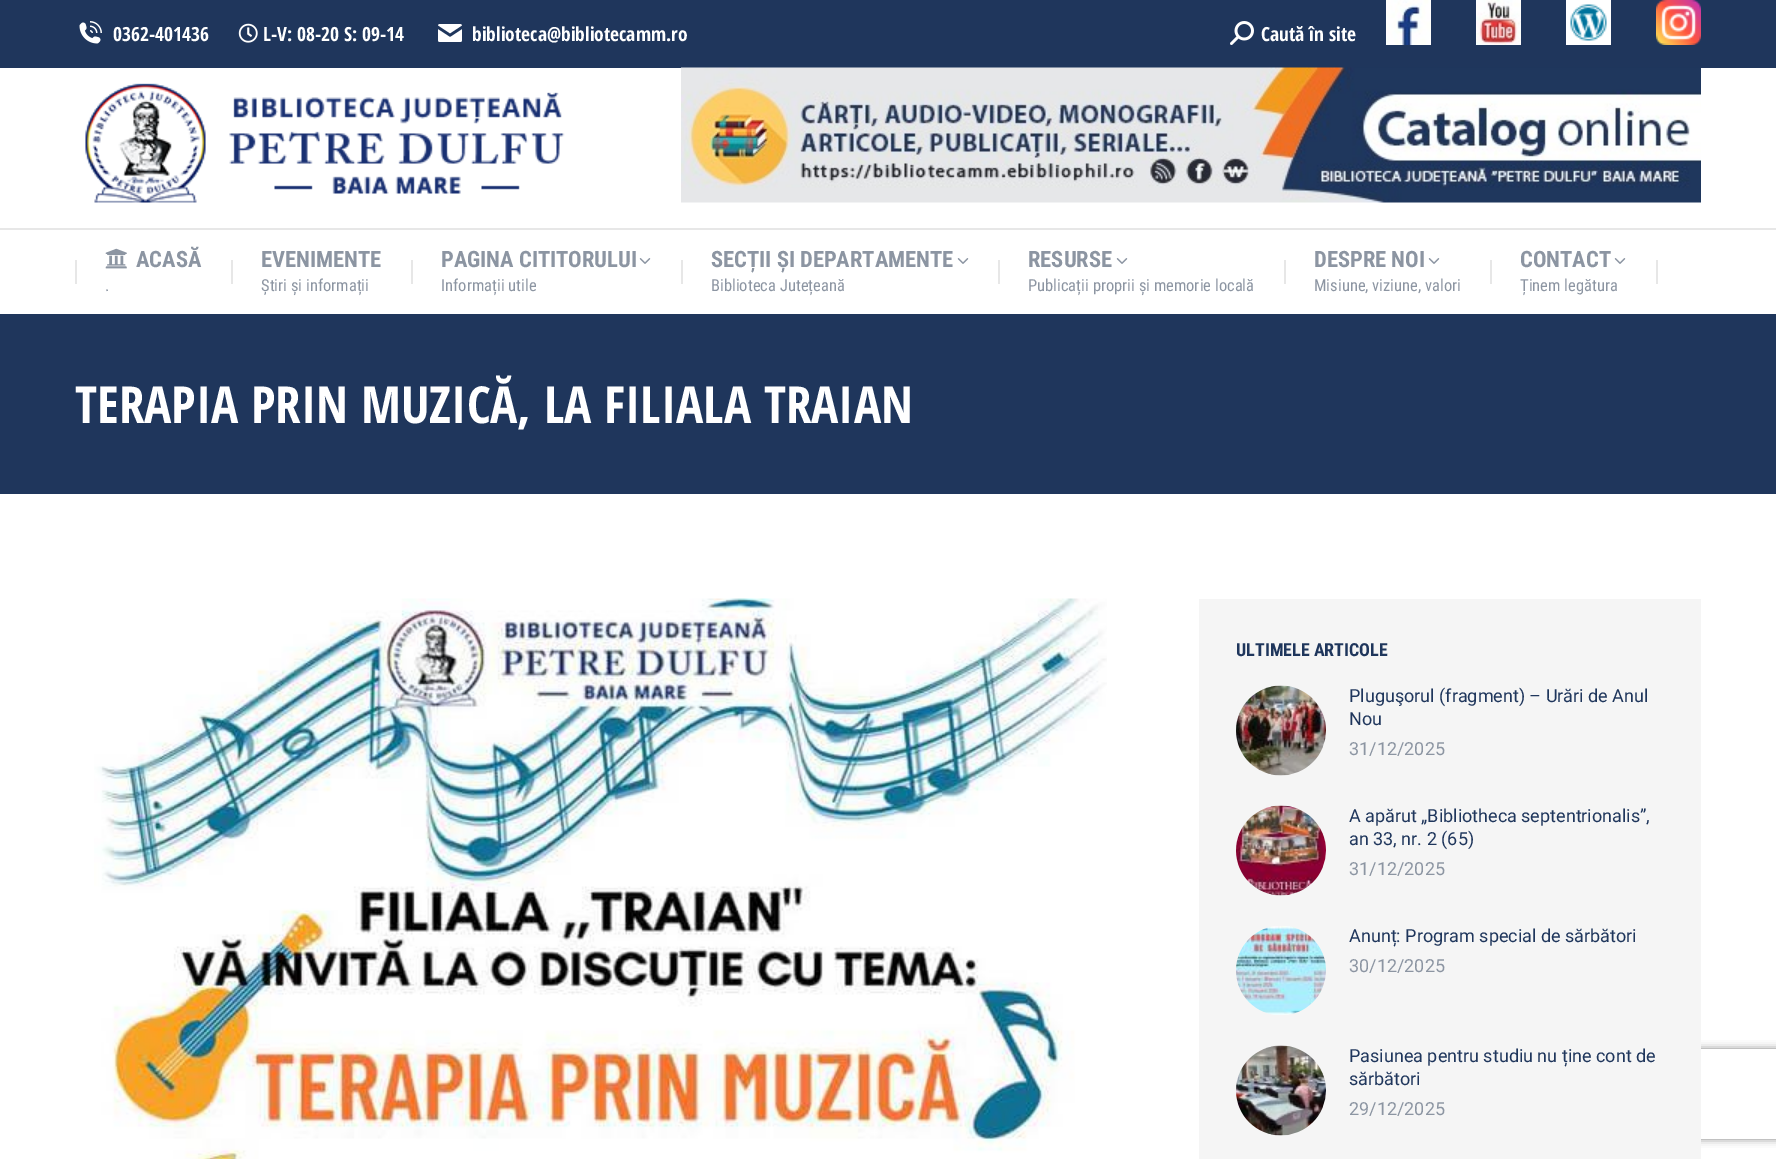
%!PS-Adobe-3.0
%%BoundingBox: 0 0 1776 1159
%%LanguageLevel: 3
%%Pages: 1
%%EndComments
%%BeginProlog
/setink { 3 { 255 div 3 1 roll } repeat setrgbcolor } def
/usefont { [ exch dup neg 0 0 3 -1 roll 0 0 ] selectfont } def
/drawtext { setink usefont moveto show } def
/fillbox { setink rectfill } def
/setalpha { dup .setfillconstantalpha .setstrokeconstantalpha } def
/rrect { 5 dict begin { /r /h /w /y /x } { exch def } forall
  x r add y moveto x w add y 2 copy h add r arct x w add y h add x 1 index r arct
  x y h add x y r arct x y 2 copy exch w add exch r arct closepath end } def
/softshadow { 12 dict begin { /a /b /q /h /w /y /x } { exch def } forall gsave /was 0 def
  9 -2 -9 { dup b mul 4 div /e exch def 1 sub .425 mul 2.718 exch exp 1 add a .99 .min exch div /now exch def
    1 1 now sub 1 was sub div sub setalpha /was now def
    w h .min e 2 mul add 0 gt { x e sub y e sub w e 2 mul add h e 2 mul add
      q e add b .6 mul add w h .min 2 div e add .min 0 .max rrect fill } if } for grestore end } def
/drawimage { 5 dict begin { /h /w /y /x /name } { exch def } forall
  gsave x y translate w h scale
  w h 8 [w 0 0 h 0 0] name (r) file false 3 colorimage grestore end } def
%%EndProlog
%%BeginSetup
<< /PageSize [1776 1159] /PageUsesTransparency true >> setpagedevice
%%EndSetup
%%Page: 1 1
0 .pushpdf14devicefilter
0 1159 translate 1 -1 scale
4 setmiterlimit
0 0 1776 1159 255 255 255 fillbox
0 0 1776 68 31 54 92 fillbox
(assets/img1.rgb) 79 21 23 23 drawimage
(0362-401436) 113 41 /OpenSansCondensed-Bold 19.5 255 255 255 drawtext
(assets/img2.rgb) 238 23 20 20 drawimage
(L-V: 08-20 S: 09-14) 263 41 /OpenSansCondensed-Bold 19.5 255 255 255 drawtext
(assets/img3.rgb) 438 24 24 18 drawimage
(biblioteca@bibliotecamm.ro) 472 41 /OpenSansCondensed-Bold 19.5 255 255 255 drawtext
(assets/img4.rgb) 1230 21 24 24 drawimage
(Caută în site) 1261 41 /OpenSansCondensed-Bold 19.5 255 255 255 drawtext
(assets/img5.rgb) 1386 0 45 45 drawimage
(assets/img6.rgb) 1476 0 45 45 drawimage
(assets/img7.rgb) 1566 0 45 45 drawimage
(assets/img8.rgb) 1656 0 45 45 drawimage
(assets/img9.rgb) 85 83 480 120 drawimage
(assets/img10.rgb) 681 67 1020 136 drawimage
0 228 1776 2 231 231 231 fillbox
75 260 2 24 231 231 231 fillbox
(assets/img11.rgb) 105 248 22 21 drawimage
(ACASĂ) 136 267 /RobotoCondensed-Bold 22.5 140 149 162 drawtext
(.) 105 291 /RobotoCondensed-Regular 16.5 140 149 162 drawtext
231 260 2 24 231 231 231 fillbox
(EVENIMENTE) 261 267 /RobotoCondensed-Bold 22.5 140 149 162 drawtext
(Știri și informații) 261 291 /RobotoCondensed-Regular 16.5 140 149 162 drawtext
411 260 2 24 231 231 231 fillbox
(PAGINA CITITORULUI) 441 267 /RobotoCondensed-Bold 22.5 140 149 162 drawtext
(assets/img12.rgb) 639 258 12 6 drawimage
(Informații utile) 441 291 /RobotoCondensed-Regular 16.5 140 149 162 drawtext
681 260 2 24 231 231 231 fillbox
(SECȚII ȘI DEPARTAMENTE) 711 267 /RobotoCondensed-Bold 22.5 140 149 162 drawtext
(assets/img12.rgb) 957 258 12 6 drawimage
(Biblioteca Jutețeană) 711 291 /RobotoCondensed-Regular 16.5 140 149 162 drawtext
998 260 2 24 231 231 231 fillbox
(RESURSE) 1028 267 /RobotoCondensed-Bold 22.5 140 149 162 drawtext
(assets/img12.rgb) 1116 258 12 6 drawimage
(Publicații proprii și memorie locală) 1028 291 /RobotoCondensed-Regular 16.5 140 149 162 drawtext
1284 260 2 24 231 231 231 fillbox
(DESPRE NOI) 1314 267 /RobotoCondensed-Bold 22.5 140 149 162 drawtext
(assets/img12.rgb) 1428 258 12 6 drawimage
(Misiune, viziune, valori) 1314 291 /RobotoCondensed-Regular 16.5 140 149 162 drawtext
1490 260 2 24 231 231 231 fillbox
(CONTACT) 1520 267 /RobotoCondensed-Bold 22.5 140 149 162 drawtext
(assets/img12.rgb) 1614 258 12 6 drawimage
(Ținem legătura) 1520 291 /RobotoCondensed-Regular 16.5 140 149 162 drawtext
1656 260 2 24 231 231 231 fillbox
0 314 1776 180 31 54 92 fillbox
(TERAPIA PRIN MUZICĂ, LA FILIALA TRAIAN) 75 423 /OpenSansCondensed-Bold 51 255 255 255 drawtext
(assets/img13.rgb) 94 598 1013 561 drawimage
gsave
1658 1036 moveto 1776 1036 lineto 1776 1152 lineto 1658 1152 lineto closepath 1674 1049 moveto 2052 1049 lineto 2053.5 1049 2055 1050.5 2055 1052 curveto 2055 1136 lineto 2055 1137.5 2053.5 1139 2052 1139 curveto 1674 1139 lineto 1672.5 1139 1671 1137.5 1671 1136 curveto 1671 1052 lineto 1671 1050.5 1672.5 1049 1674 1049 curveto closepath eoclip newpath
128 128 128 setink
1671 1049 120 90 3 4 1 softshadow
grestore
1199 599 502 560 245 245 245 fillbox
(ULTIMELE ARTICOLE) 1236 656 /RobotoCondensed-Bold 18 31 54 92 drawtext
(assets/img14.rgb) 1236 685 90 91 drawimage
(Pluguşorul \(fragment\) – Urări de Anul) 1349 702 /Roboto-Regular 18 31 54 92 drawtext
(Nou) 1349 725 /Roboto-Regular 18 31 54 92 drawtext
(31/12/2025) 1349 755 /Roboto-Regular 18 140 149 162 drawtext
(assets/img15.rgb) 1236 805 90 91 drawimage
(A apărut „Bibliotheca septentrionalis”,) 1349 822 /Roboto-Regular 18 31 54 92 drawtext
(an 33, nr. 2 \(65\)) 1349 845 /Roboto-Regular 18 31 54 92 drawtext
(31/12/2025) 1349 875 /Roboto-Regular 18 140 149 162 drawtext
(assets/img16.rgb) 1236 926 90 89 drawimage
(Anunț: Program special de sărbători) 1349 942 /Roboto-Regular 18 31 54 92 drawtext
(30/12/2025) 1349 972 /Roboto-Regular 18 140 149 162 drawtext
(assets/img17.rgb) 1236 1045 90 91 drawimage
(Pasiunea pentru studiu nu ține cont de) 1349 1062 /Roboto-Regular 18 31 54 92 drawtext
(sărbători) 1349 1085 /Roboto-Regular 18 31 54 92 drawtext
(29/12/2025) 1349 1115 /Roboto-Regular 18 140 149 162 drawtext
.poppdf14devicefilter showpage
%%EOF
